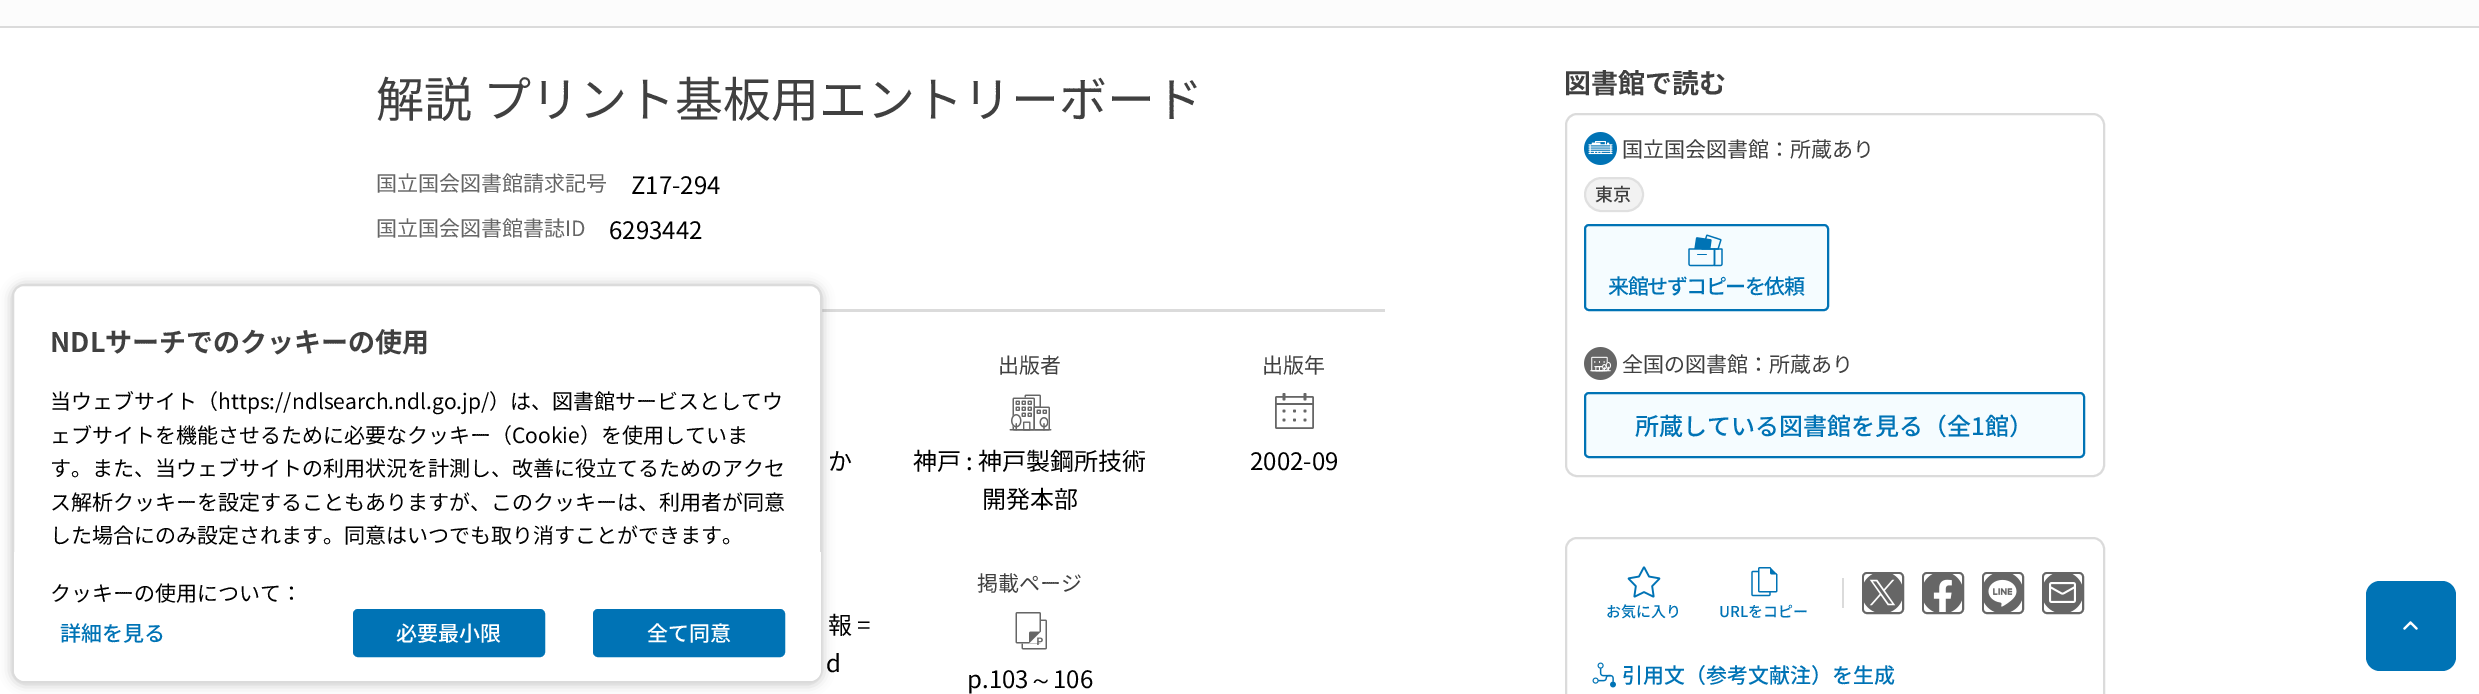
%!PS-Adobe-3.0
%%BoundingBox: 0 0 2479 694
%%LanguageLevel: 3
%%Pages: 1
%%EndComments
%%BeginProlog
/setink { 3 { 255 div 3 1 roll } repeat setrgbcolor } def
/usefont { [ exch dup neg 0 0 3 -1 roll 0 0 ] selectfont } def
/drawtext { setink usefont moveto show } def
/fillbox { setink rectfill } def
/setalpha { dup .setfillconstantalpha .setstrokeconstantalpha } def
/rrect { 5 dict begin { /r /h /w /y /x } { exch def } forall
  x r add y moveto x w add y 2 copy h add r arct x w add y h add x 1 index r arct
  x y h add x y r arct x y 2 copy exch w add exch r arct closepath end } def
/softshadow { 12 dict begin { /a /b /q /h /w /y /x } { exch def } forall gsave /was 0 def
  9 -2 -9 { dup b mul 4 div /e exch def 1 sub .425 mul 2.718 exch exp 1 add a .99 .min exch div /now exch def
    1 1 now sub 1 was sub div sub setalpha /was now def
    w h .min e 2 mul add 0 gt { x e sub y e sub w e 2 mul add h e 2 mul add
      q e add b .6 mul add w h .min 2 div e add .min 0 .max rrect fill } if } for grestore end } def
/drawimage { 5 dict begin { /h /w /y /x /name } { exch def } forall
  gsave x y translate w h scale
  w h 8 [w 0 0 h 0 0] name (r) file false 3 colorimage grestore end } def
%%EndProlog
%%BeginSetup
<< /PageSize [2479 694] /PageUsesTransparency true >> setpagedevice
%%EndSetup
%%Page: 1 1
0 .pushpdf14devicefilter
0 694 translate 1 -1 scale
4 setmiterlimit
0 0 2479 694 255 255 255 fillbox
0 0 2479 26 252 252 252 fillbox
0 26 2479 2 219 219 219 fillbox
(解説 プリント基板用エントリーボード) 376 117 /NotoSansJP-Regular 48 64 64 64 drawtext
(国立国会図書館請求記号) 376 191 /NotoSansJP-Regular 21 102 102 102 drawtext
(Z17-294) 631 194 /NotoSansJP-Regular 24 0 0 0 drawtext
(国立国会図書館書誌ID) 376 236 /NotoSansJP-Regular 21 102 102 102 drawtext
(6293442) 609 239 /NotoSansJP-Regular 24 0 0 0 drawtext
822 309 563 3 219 219 219 fillbox
(か) 828 470 /NotoSansJP-Regular 24 0 0 0 drawtext
(出版者) 998 373 /NotoSansJP-Regular 21 64 64 64 drawtext
(assets/img1.rgb) 1009 394 43 37 drawimage
(神戸 : 神戸製鋼所技術) 913 470 /NotoSansJP-Regular 24 0 0 0 drawtext
(開発本部) 982 508 /NotoSansJP-Regular 24 0 0 0 drawtext
(出版年) 1262 373 /NotoSansJP-Regular 21 64 64 64 drawtext
(assets/img2.rgb) 1275 393 39 36 drawimage
(2002-09) 1250 470 /NotoSansJP-Regular 24 0 0 0 drawtext
(報 =) 828 634 /NotoSansJP-Regular 24 0 0 0 drawtext
(d) 826 672 /NotoSansJP-Regular 24 0 0 0 drawtext
(掲載ページ) 977 591 /NotoSansJP-Regular 21 64 64 64 drawtext
(assets/img3.rgb) 1015 612 32 38 drawimage
(p.103) 967 688 /NotoSansJP-Regular 24 0 0 0 drawtext
(～) 1029 688 /WenQuanYiZenHei-Medium 24 0 0 0 drawtext
(106) 1053 688 /NotoSansJP-Regular 24 0 0 0 drawtext
(図書館で読む) 1564 93 /NotoSansJP-Bold 27 64 64 64 drawtext
219 219 219 setink
2 setlinewidth
1566 114 538 362 11 rrect stroke
(assets/img4.rgb) 1584 132 33 33 drawimage
(国立国会図書館：所蔵あり) 1622 157 /NotoSansJP-Regular 21 64 64 64 drawtext
242 242 242 setink
1584 177 60 35 17.5 rrect fill
0.1 setalpha
64 64 64 setink
1585 178 58 33 16.5 rrect stroke
1 setalpha
(東京) 1595 201 /NotoSansJP-Medium 18 64 64 64 drawtext
245 252 255 setink
1585 225 243 85 4 rrect gsave fill grestore
0 115 181 setink
stroke
(assets/img5.rgb) 1688 234 35 33 drawimage
/NotoSansJP-Medium 21 usefont
1608 294 moveto -1.5 0 (来館せずコピーを依頼) ashow
(assets/img6.rgb) 1584 347 33 33 drawimage
(全国の図書館：所蔵あり) 1622 372 /NotoSansJP-Regular 21 64 64 64 drawtext
245 252 255 setink
1585 393 499 64 4 rrect gsave fill grestore
0 115 181 setink
stroke
(所蔵している図書館を見る（全1館）) 1635 435 /NotoSansJP-Medium 24 0 115 181 drawtext
219 219 219 setink
1566 538 538 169 11 rrect stroke
1842 578 2 30 219 219 219 fillbox
102 102 102 setink
1863 573 40 40 4 rrect stroke
(assets/img7.rgb) 1864 574 38 38 drawimage
1923 573 40 40 4 rrect stroke
(assets/img8.rgb) 1924 574 38 38 drawimage
1983 573 40 40 4 rrect stroke
(assets/img9.rgb) 1984 574 38 38 drawimage
2043 573 40 40 4 rrect stroke
(assets/img10.rgb) 2044 574 38 38 drawimage
(assets/img11.rgb) 1627 566 34 32 drawimage
(お気に入り) 1606 617 /NotoSansJP-Medium 15 0 115 181 drawtext
(assets/img12.rgb) 1751 567 27 30 drawimage
(URLをコピー) 1719 617 /NotoSansJP-Medium 15 0 115 181 drawtext
(assets/img13.rgb) 1592 662 24 26 drawimage
(引用文（参考文献注）を生成) 1622 683 /NotoSansJP-Medium 21 0 115 181 drawtext
0 0 0 setink
12 285 810 399 12 6 0.24 softshadow
255 255 255 setink
13 285 808 397 11 rrect gsave fill grestore
219 219 219 setink
stroke
(NDLサーチでのクッキーの使用) 50 352 /NotoSansJP-Bold 27 64 64 64 drawtext
(当ウェブサイト（https://ndlsearch.ndl.go.jp/）は、図書館サービスとしてウ) 50 409 /NotoSansJP-Regular 21 0 0 0 drawtext
(ェブサイトを機能させるために必要なクッキー（Cookie）を使用していま) 50 443 /NotoSansJP-Regular 21 0 0 0 drawtext
(す。また、当ウェブサイトの利用状況を計測し、改善に役立てるためのアクセ) 50 476 /NotoSansJP-Regular 21 0 0 0 drawtext
(ス解析クッキーを設定することもありますが、このクッキーは、利用者が同意) 50 510 /NotoSansJP-Regular 21 0 0 0 drawtext
(した場合にのみ設定されます。同意はいつでも取り消すことができます。) 50 543 /NotoSansJP-Regular 21 0 0 0 drawtext
255 255 255 setink
14 552 moveto 821 552 lineto 821 670 lineto 821 676 816 681 810 681 curveto 25 681 lineto 19 681 14 676 14 670 curveto closepath fill
(クッキーの使用について：) 50 601 /NotoSansJP-Regular 21 0 0 0 drawtext
(詳細を見る) 60 641 /NotoSansJP-Medium 21 0 115 181 drawtext
354 610 190 46 4 rrect gsave fill grestore
stroke
(必要最小限) 396 641 /NotoSansJP-Medium 21 255 255 255 drawtext
0 115 181 setink
594 610 190 46 4 rrect gsave fill grestore
stroke
(全て同意) 647 641 /NotoSansJP-Medium 21 255 255 255 drawtext
0 115 181 setink
2366 581 90 90 14 rrect fill
(assets/img14.rgb) 2403 621 15 9 drawimage
.poppdf14devicefilter showpage
%%EOF
